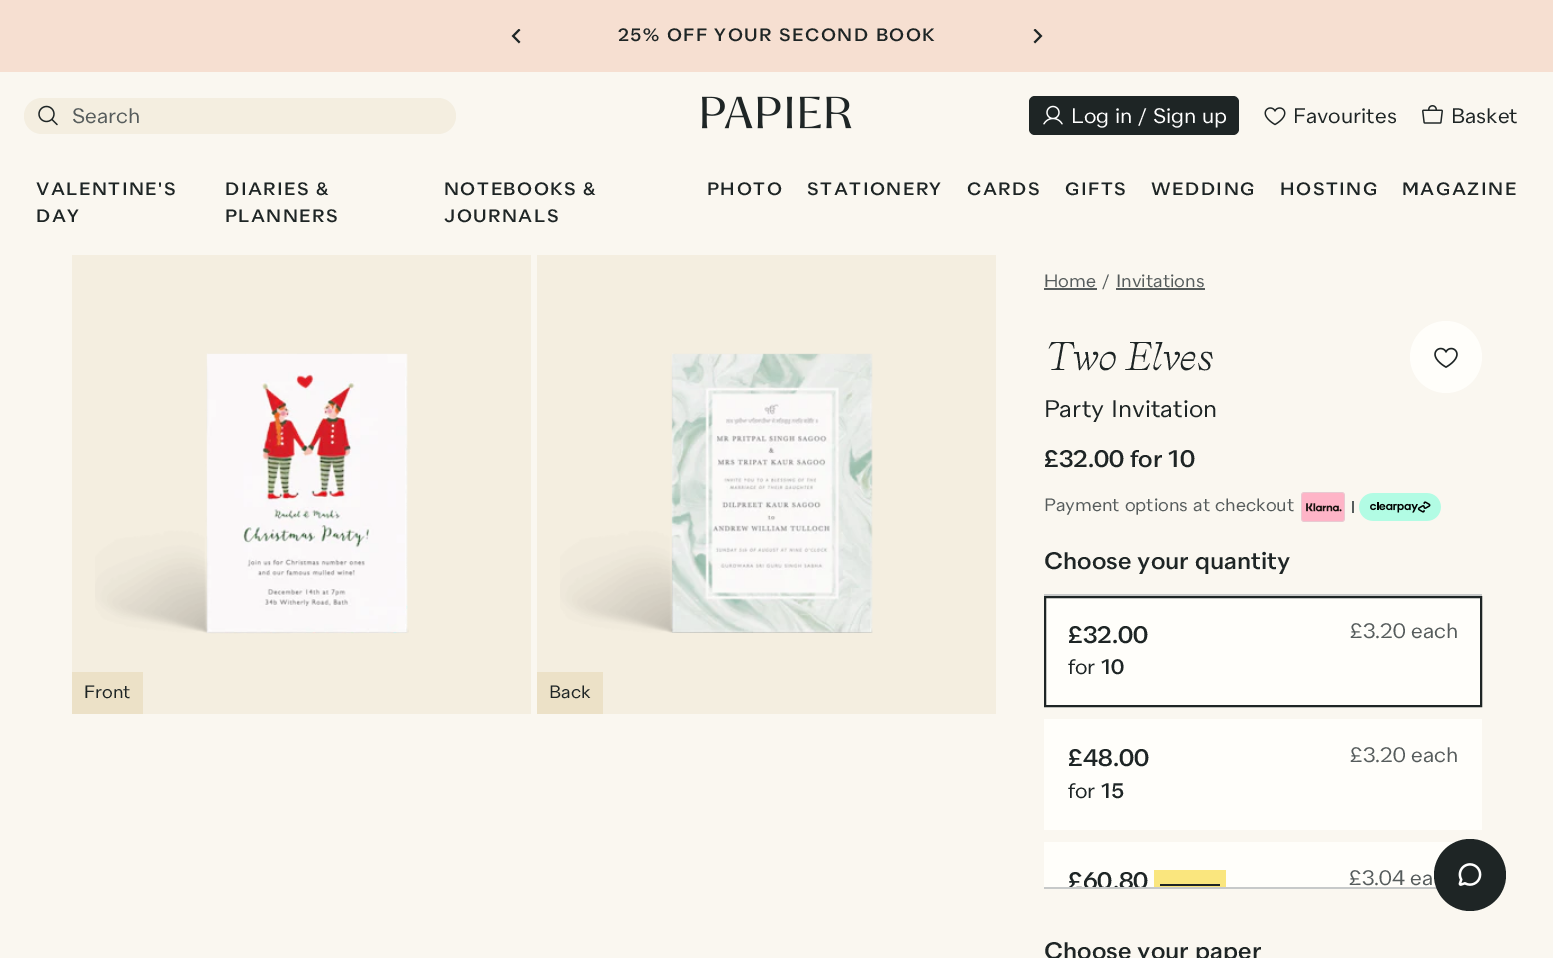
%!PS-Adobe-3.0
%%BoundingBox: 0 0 1553 958
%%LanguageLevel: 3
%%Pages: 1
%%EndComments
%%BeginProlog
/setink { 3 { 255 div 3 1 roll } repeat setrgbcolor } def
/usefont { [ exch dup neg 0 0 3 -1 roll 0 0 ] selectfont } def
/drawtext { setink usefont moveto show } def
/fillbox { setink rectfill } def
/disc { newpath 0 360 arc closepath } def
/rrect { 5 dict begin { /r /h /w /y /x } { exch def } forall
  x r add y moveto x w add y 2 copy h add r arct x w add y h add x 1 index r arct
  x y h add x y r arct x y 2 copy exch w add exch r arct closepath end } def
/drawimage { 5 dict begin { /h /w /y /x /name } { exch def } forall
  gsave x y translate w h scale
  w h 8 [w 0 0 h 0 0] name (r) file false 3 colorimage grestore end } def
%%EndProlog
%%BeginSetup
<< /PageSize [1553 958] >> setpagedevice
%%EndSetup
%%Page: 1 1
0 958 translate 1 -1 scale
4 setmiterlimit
0 0 1553 958 250 247 240 fillbox
0 0 1553 72 246 223 209 fillbox
(assets/img1.rgb) 511 29 10 15 drawimage
/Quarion-Medium 18 usefont
30 37 37 setink
618 41 moveto 1.5 0 (25% OFF YOUR SECOND BOOK) ashow
(assets/img2.rgb) 1033 29 10 15 drawimage
244 238 224 setink
24 98 432 36 18 rrect fill
(assets/img3.rgb) 38 105 20 21 drawimage
(Search) 72 123 /Quarion-Regular 21 86 92 92 drawtext
(assets/img4.rgb) 702 96 150 33 drawimage
30 37 37 setink
1029 96 210 39 6 rrect fill
(assets/img5.rgb) 1043 105 20 20 drawimage
(Log in / Sign up) 1071 123 /Quarion-Regular 21 255 255 255 drawtext
(assets/img6.rgb) 1264 107 22 19 drawimage
(Favourites) 1293 123 /Quarion-Regular 21 30 37 37 drawtext
(assets/img7.rgb) 1422 105 21 19 drawimage
(Basket) 1451 123 /Quarion-Regular 21 30 37 37 drawtext
/Quarion-Medium 18 usefont
36 195 moveto 1.5 0 (VALENTINE'S) ashow
36 222 moveto 1.5 0 (DAY) ashow
225 195 moveto 1.5 0 (DIARIES &) ashow
225 222 moveto 1.5 0 (PLANNERS) ashow
444 195 moveto 1.5 0 (NOTEBOOKS &) ashow
444 222 moveto 1.5 0 (JOURNALS) ashow
707 195 moveto 1.5 0 (PHOTO) ashow
807 195 moveto 1.5 0 (STATIONERY) ashow
967 195 moveto 1.5 0 (CARDS) ashow
1065 195 moveto 1.5 0 (GIFTS) ashow
1151 195 moveto 1.5 0 (WEDDING) ashow
1280 195 moveto 1.5 0 (HOSTING) ashow
1402 195 moveto 1.5 0 (MAGAZINE) ashow
(Home) 1044 287 /Quarion-Regular 18 86 92 92 drawtext
1044 288 53 2 86 92 92 fillbox
(/) 1102 287 /Quarion-Regular 18 86 92 92 drawtext
(Invitations) 1116 287 /Quarion-Regular 18 86 92 92 drawtext
1116 288 89 2 86 92 92 fillbox
72 255 459 459 244 238 224 fillbox
(assets/img8.rgb) 95 353 314 281 drawimage
72 672 71 42 236 225 199 fillbox
(Front) 84 698 /Quarion-Regular 18 30 37 37 drawtext
537 255 459 459 244 238 224 fillbox
(assets/img9.rgb) 560 353 313 280 drawimage
537 672 66 42 236 225 199 fillbox
(Back) 549 698 /Quarion-Regular 18 30 37 37 drawtext
(Two Elves) 1044 370 /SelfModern-Italic 36 30 37 37 drawtext
255 254 250 setink
1446 357 36 disc fill
(assets/img10.rgb) 1434 347 24 21 drawimage
(Party Invitation) 1044 417 /Quarion-Regular 24 30 37 37 drawtext
(£32.00 for 10) 1044 467 /Quarion-Medium 24 30 37 37 drawtext
(Payment options at checkout) 1044 511 /Quarion-Regular 18 86 92 92 drawtext
(assets/img11.rgb) 1301 492 44 30 drawimage
1352 501 2 12 86 92 92 fillbox
(assets/img12.rgb) 1359 493 82 28 drawimage
(Choose your quantity) 1044 569 /Quarion-Medium 24 30 37 37 drawtext
1044 594 438 2 199 201 201 fillbox
1044 887 393 2 199 201 201 fillbox
255 254 250 setink
1045 597 moveto 1481 597 lineto 1481 706 lineto 1045 706 lineto closepath gsave fill grestore
30 37 37 setink
2 setlinewidth
stroke
(£32.00) 1068 643 /Quarion-Medium 24 30 37 37 drawtext
(for) 1068 674 /Quarion-Regular 21 30 37 37 drawtext
(10) 1101 674 /Quarion-Medium 21 30 37 37 drawtext
(£3.20 each) 1350 638 /Quarion-Regular 21 86 92 92 drawtext
1044 719 438 111 255 254 250 fillbox
(£48.00) 1068 766 /Quarion-Medium 24 30 37 37 drawtext
(for) 1068 798 /Quarion-Regular 21 30 37 37 drawtext
(15) 1101 798 /Quarion-Medium 21 30 37 37 drawtext
(£3.20 each) 1350 762 /Quarion-Regular 21 86 92 92 drawtext
1044 842 412 45 255 254 250 fillbox
gsave
1044 596 438 291 rectclip
(£60.80) 1068 889 /Quarion-Medium 24 30 37 37 drawtext
grestore
1154 870 72 17 250 230 126 fillbox
1160 884 60 2 30 37 37 fillbox
(£3.04 ea) 1349 885 /Quarion-Regular 21 86 92 92 drawtext
(Choose your paper) 1044 959 /Quarion-Medium 24 30 37 37 drawtext
1470 875 36 disc fill
(assets/img13.rgb) 1458 863 24 23 drawimage
showpage
%%EOF
